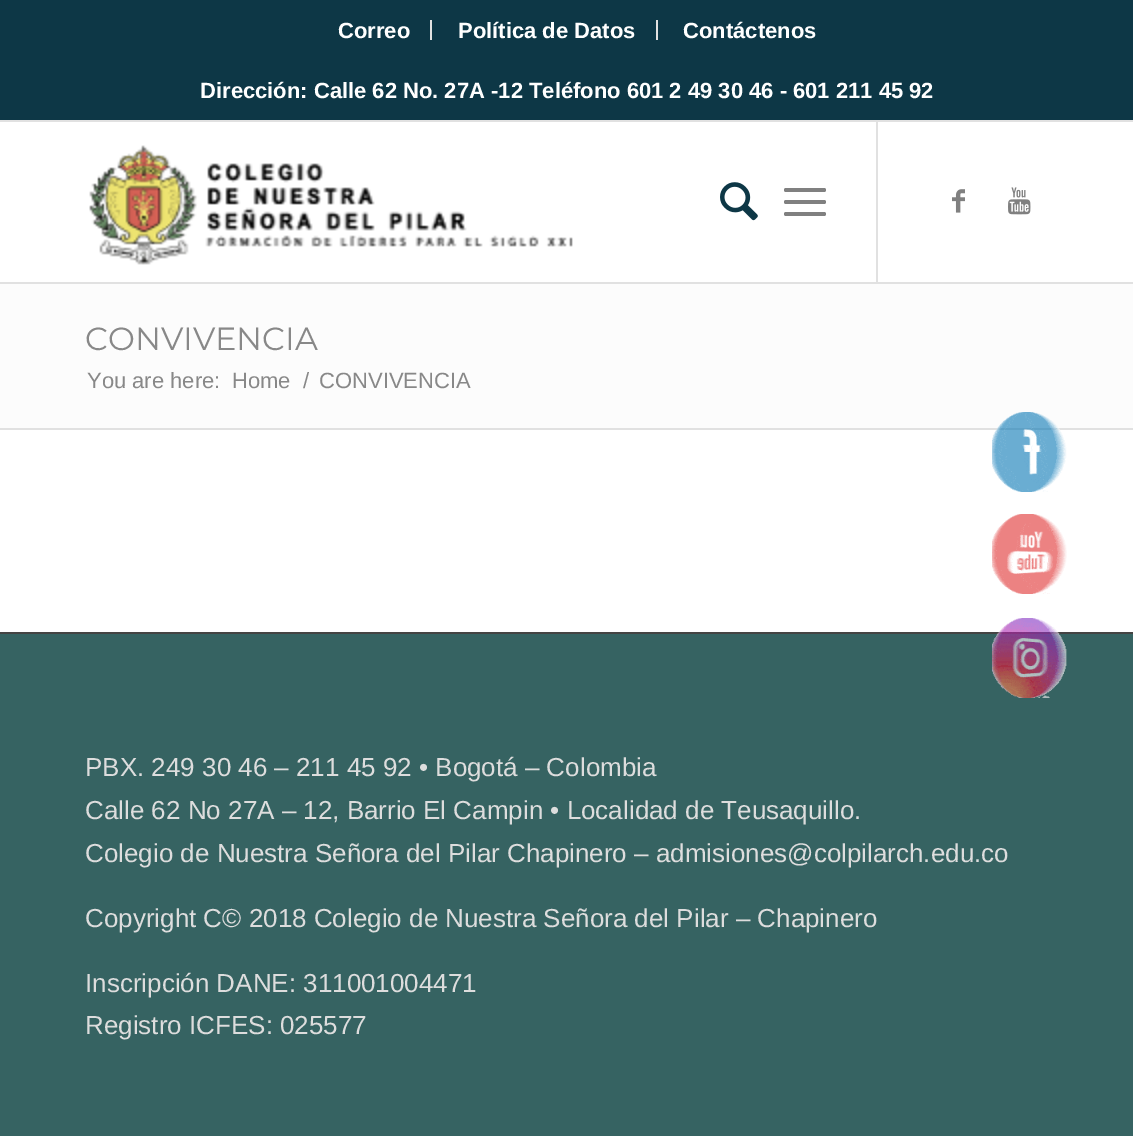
%!PS-Adobe-3.0
%%BoundingBox: 0 0 1133 1136
%%LanguageLevel: 3
%%Pages: 1
%%EndComments
%%BeginProlog
/setink { 3 { 255 div 3 1 roll } repeat setrgbcolor } def
/usefont { [ exch dup neg 0 0 3 -1 roll 0 0 ] selectfont } def
/drawtext { setink usefont moveto show } def
/fillbox { setink rectfill } def
/rrect { 5 dict begin { /r /h /w /y /x } { exch def } forall
  x r add y moveto x w add y 2 copy h add r arct x w add y h add x 1 index r arct
  x y h add x y r arct x y 2 copy exch w add exch r arct closepath end } def
/drawimage { 5 dict begin { /h /w /y /x /name } { exch def } forall
  gsave x y translate w h scale
  w h 8 [w 0 0 h 0 0] name (r) file false 3 colorimage grestore end } def
%%EndProlog
%%BeginSetup
<< /PageSize [1133 1136] >> setpagedevice
%%EndSetup
%%Page: 1 1
0 1136 translate 1 -1 scale
4 setmiterlimit
0 0 1133 1136 255 255 255 fillbox
0 0 1133 120 13 55 70 fillbox
0 120 1133 2 225 225 225 fillbox
430 20 2 20 225 225 225 fillbox
(Correo) 338 38 /LiberationSans-Bold 22 255 255 255 drawtext
656 20 2 20 225 225 225 fillbox
(Política de Datos) 458 38 /LiberationSans-Bold 22 255 255 255 drawtext
(Contáctenos) 683 38 /LiberationSans-Bold 22 255 255 255 drawtext
(Dirección: Calle 62 No. 27A -12 Teléfono 601 2 49 30 46 - 601 211 45 92) 200 98 /LiberationSans-Bold 22 255 255 255 drawtext
0 282 1133 2 225 225 225 fillbox
(assets/img1.rgb) 89 145 484 120 drawimage
876 122 2 160 225 225 225 fillbox
(assets/img2.rgb) 720 182 38 39 drawimage
128 128 128 setink
784 200 42 4 2 rrect fill
784 188 42 4 2 rrect fill
784 212 42 4 2 rrect fill
(assets/img3.rgb) 952 189 13 24 drawimage
(assets/img4.rgb) 1008 187 23 28 drawimage
0 284 1133 144 252 252 252 fillbox
(CONVIVENCIA) 85 350 /Montserrat-Thin 32 136 136 136 drawtext
(You are here:) 87 388 /LiberationSans-Regular 22 136 136 136 drawtext
(Home) 232 388 /LiberationSans-Regular 22 136 136 136 drawtext
(/) 303 388 /LiberationSans-Regular 22 136 136 136 drawtext
(CONVIVENCIA) 319 388 /LiberationSans-Regular 22 136 136 136 drawtext
0 428 1133 2 225 225 225 fillbox
0 634 1133 502 54 99 98 fillbox
0 632 1133 2 68 68 68 fillbox
(PBX. 249 30 46 – 211 45 92 • Bogotá – Colombia) 85 776 /LiberationSans-Regular 26 221 221 221 drawtext
(Calle 62 No 27A – 12, Barrio El Campin • Localidad de Teusaquillo.) 85 819 /LiberationSans-Regular 26 221 221 221 drawtext
(Colegio de Nuestra Señora del Pilar Chapinero – admisiones@colpilarch.edu.co) 85 862 /LiberationSans-Regular 26 221 221 221 drawtext
(Copyright C© 2018 Colegio de Nuestra Señora del Pilar – Chapinero) 85 927 /LiberationSans-Regular 26 221 221 221 drawtext
(Inscripción DANE: 311001004471) 85 992 /LiberationSans-Regular 26 221 221 221 drawtext
(Registro ICFES: 025577) 85 1034 /LiberationSans-Regular 26 221 221 221 drawtext
(assets/img5.rgb) 992 412 75 80 drawimage
(assets/img6.rgb) 992 514 75 80 drawimage
(assets/img7.rgb) 992 618 75 80 drawimage
showpage
%%EOF
